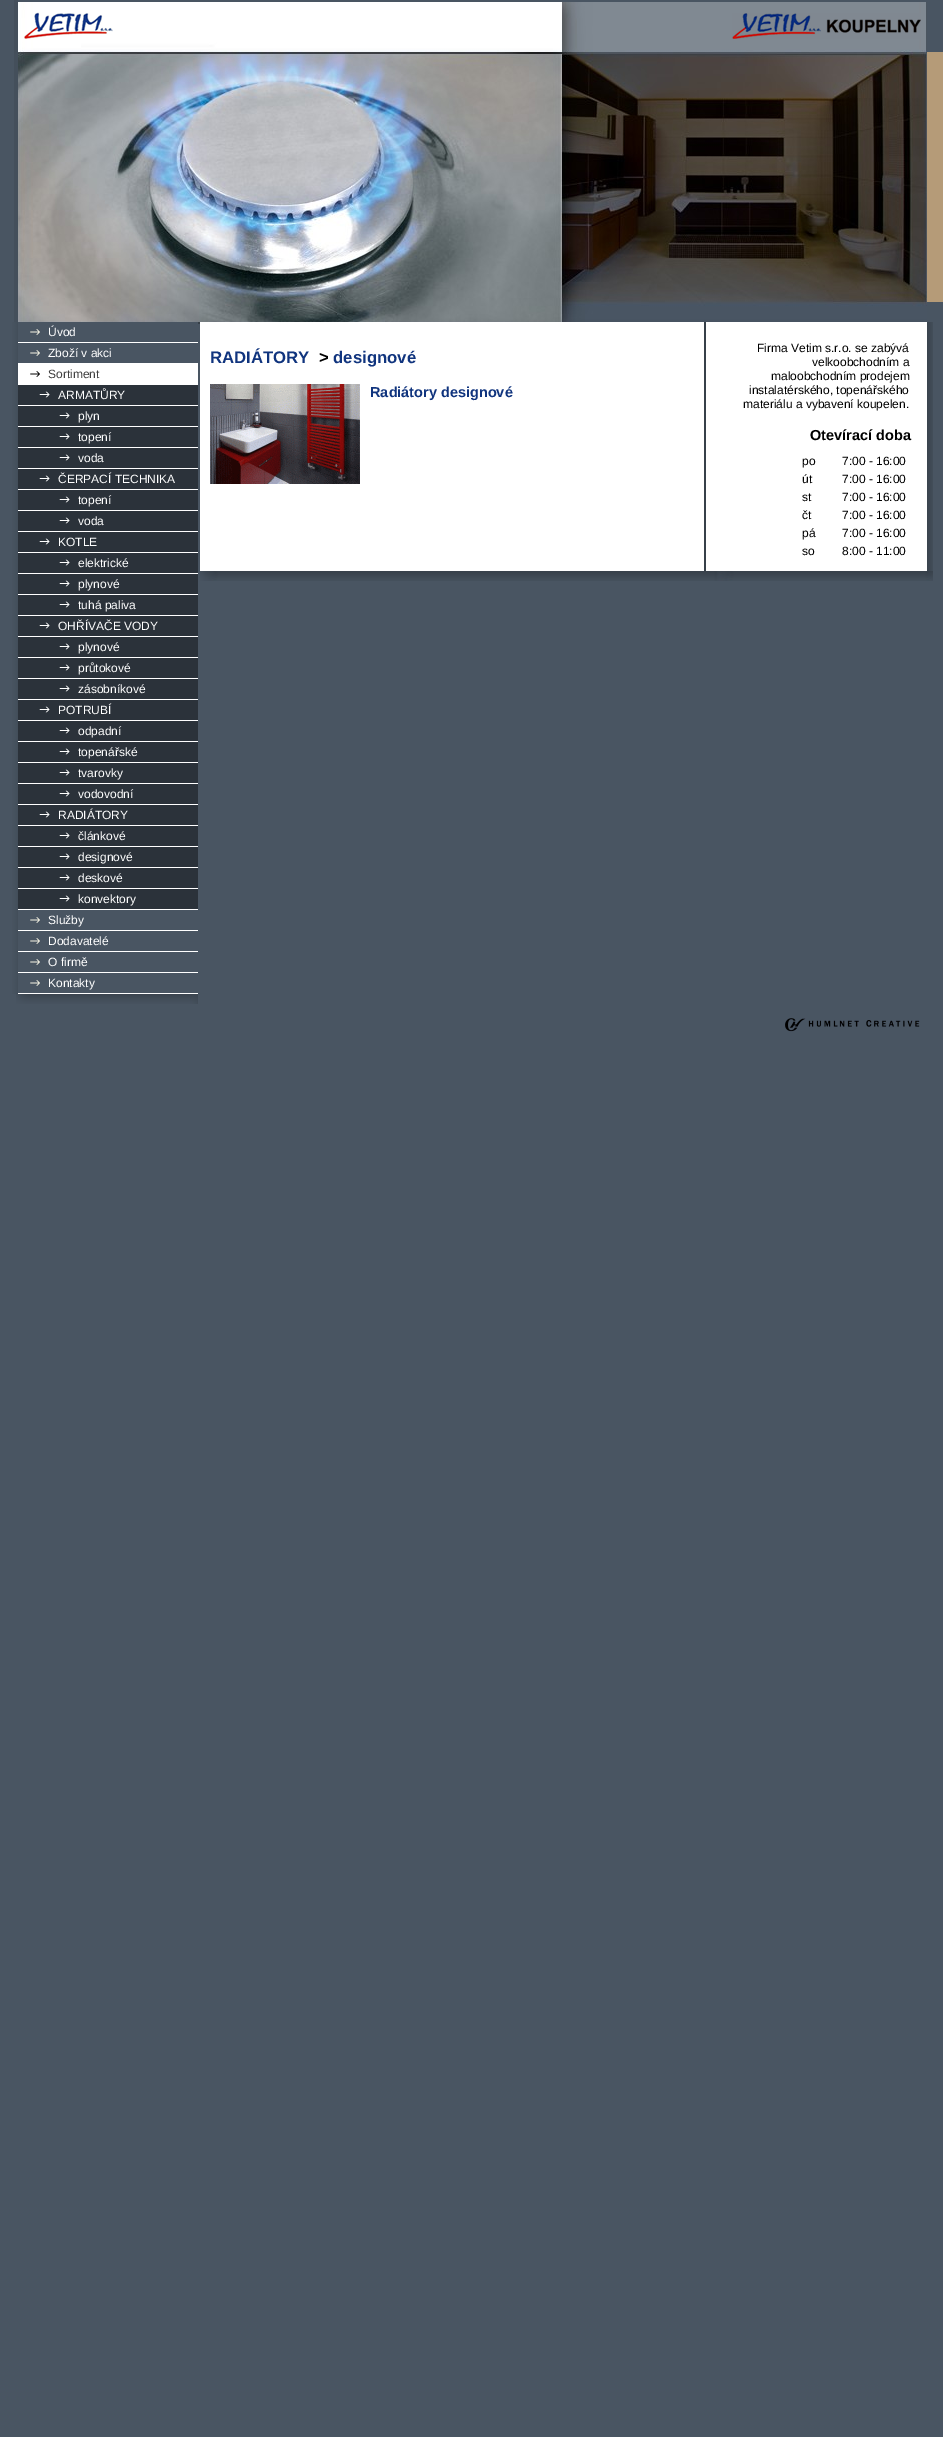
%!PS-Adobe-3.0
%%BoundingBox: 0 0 943 2437
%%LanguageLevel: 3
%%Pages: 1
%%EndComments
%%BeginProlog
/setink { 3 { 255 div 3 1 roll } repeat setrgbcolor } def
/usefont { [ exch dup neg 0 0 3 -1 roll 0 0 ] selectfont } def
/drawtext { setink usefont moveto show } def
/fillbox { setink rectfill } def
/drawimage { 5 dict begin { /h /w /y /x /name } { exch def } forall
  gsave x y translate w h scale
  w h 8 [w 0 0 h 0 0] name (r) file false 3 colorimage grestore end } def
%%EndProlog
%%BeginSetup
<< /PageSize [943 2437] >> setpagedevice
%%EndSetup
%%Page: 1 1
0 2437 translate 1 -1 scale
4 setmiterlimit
0 0 943 2437 73 85 98 fillbox
927 52 16 250 181 155 120 fillbox
(assets/img1.rgb) 18 2 909 322 drawimage
14 0 4 322 68 79 91 fillbox
(assets/img2.rgb) 24 12 89 27 drawimage
(assets/img3.rgb) 732 13 189 26 drawimage
(assets/img4.rgb) 16 994 182 10 drawimage
(assets/img5.rgb) 12 322 6 672 drawimage
18 342 180 1 255 255 255 fillbox
18 322 180 2 73 85 98 fillbox
(assets/img6.rgb) 30 329 10 6 drawimage
(Úvod) 48 336 /LiberationSans-Regular 12 255 255 255 drawtext
18 363 180 1 255 255 255 fillbox
(assets/img6.rgb) 30 350 10 6 drawimage
(Zboží v akci) 48 357 /LiberationSans-Regular 12 255 255 255 drawtext
18 364 180 21 255 255 255 fillbox
(assets/img7.rgb) 30 371 10 6 drawimage
(Sortiment) 48 378 /LiberationSans-Regular 12 64 64 64 drawtext
18 405 180 1 255 255 255 fillbox
18 385 180 20 43 50 58 fillbox
(assets/img8.rgb) 39 391 11 7 drawimage
(ARMATŮRY) 58 399 /LiberationSans-Regular 12 255 255 255 drawtext
18 426 180 1 255 255 255 fillbox
18 406 180 20 43 50 58 fillbox
(assets/img8.rgb) 59 412 11 7 drawimage
(plyn) 78 420 /LiberationSans-Regular 12 255 255 255 drawtext
18 447 180 1 255 255 255 fillbox
18 427 180 20 43 50 58 fillbox
(assets/img8.rgb) 59 433 11 7 drawimage
(topení) 78 441 /LiberationSans-Regular 12 255 255 255 drawtext
18 468 180 1 255 255 255 fillbox
18 448 180 20 43 50 58 fillbox
(assets/img8.rgb) 59 454 11 7 drawimage
(voda) 78 462 /LiberationSans-Regular 12 255 255 255 drawtext
18 489 180 1 255 255 255 fillbox
18 469 180 20 43 50 58 fillbox
(assets/img8.rgb) 39 475 11 7 drawimage
(ČERPACÍ TECHNIKA) 58 483 /LiberationSans-Regular 12 255 255 255 drawtext
18 510 180 1 255 255 255 fillbox
18 490 180 20 43 50 58 fillbox
(assets/img8.rgb) 59 496 11 7 drawimage
(topení) 78 504 /LiberationSans-Regular 12 255 255 255 drawtext
18 531 180 1 255 255 255 fillbox
18 511 180 20 43 50 58 fillbox
(assets/img8.rgb) 59 517 11 7 drawimage
(voda) 78 525 /LiberationSans-Regular 12 255 255 255 drawtext
18 552 180 1 255 255 255 fillbox
18 532 180 20 43 50 58 fillbox
(assets/img8.rgb) 39 538 11 7 drawimage
(KOTLE) 58 546 /LiberationSans-Regular 12 255 255 255 drawtext
18 573 180 1 255 255 255 fillbox
18 553 180 20 43 50 58 fillbox
(assets/img8.rgb) 59 559 11 7 drawimage
(elektrické) 78 567 /LiberationSans-Regular 12 255 255 255 drawtext
18 594 180 1 255 255 255 fillbox
18 574 180 20 43 50 58 fillbox
(assets/img8.rgb) 59 580 11 7 drawimage
(plynové) 78 588 /LiberationSans-Regular 12 255 255 255 drawtext
18 615 180 1 255 255 255 fillbox
18 595 180 20 43 50 58 fillbox
(assets/img8.rgb) 59 601 11 7 drawimage
(tuhá paliva) 78 609 /LiberationSans-Regular 12 255 255 255 drawtext
18 636 180 1 255 255 255 fillbox
18 616 180 20 43 50 58 fillbox
(assets/img8.rgb) 39 622 11 7 drawimage
(OHŘÍVAČE VODY) 58 630 /LiberationSans-Regular 12 255 255 255 drawtext
18 657 180 1 255 255 255 fillbox
18 637 180 20 43 50 58 fillbox
(assets/img8.rgb) 59 643 11 7 drawimage
(plynové) 78 651 /LiberationSans-Regular 12 255 255 255 drawtext
18 678 180 1 255 255 255 fillbox
18 658 180 20 43 50 58 fillbox
(assets/img8.rgb) 59 664 11 7 drawimage
(průtokové) 78 672 /LiberationSans-Regular 12 255 255 255 drawtext
18 699 180 1 255 255 255 fillbox
18 679 180 20 43 50 58 fillbox
(assets/img8.rgb) 59 685 11 7 drawimage
(zásobníkové) 78 693 /LiberationSans-Regular 12 255 255 255 drawtext
18 720 180 1 255 255 255 fillbox
18 700 180 20 43 50 58 fillbox
(assets/img8.rgb) 39 706 11 7 drawimage
(POTRUBÍ) 58 714 /LiberationSans-Regular 12 255 255 255 drawtext
18 741 180 1 255 255 255 fillbox
18 721 180 20 43 50 58 fillbox
(assets/img8.rgb) 59 727 11 7 drawimage
(odpadní) 78 735 /LiberationSans-Regular 12 255 255 255 drawtext
18 762 180 1 255 255 255 fillbox
18 742 180 20 43 50 58 fillbox
(assets/img8.rgb) 59 748 11 7 drawimage
(topenářské) 78 756 /LiberationSans-Regular 12 255 255 255 drawtext
18 783 180 1 255 255 255 fillbox
18 763 180 20 43 50 58 fillbox
(assets/img8.rgb) 59 769 11 7 drawimage
(tvarovky) 78 777 /LiberationSans-Regular 12 255 255 255 drawtext
18 804 180 1 255 255 255 fillbox
18 784 180 20 43 50 58 fillbox
(assets/img8.rgb) 59 790 11 7 drawimage
(vodovodní) 78 798 /LiberationSans-Regular 12 255 255 255 drawtext
18 825 180 1 255 255 255 fillbox
18 805 180 20 43 50 58 fillbox
(assets/img8.rgb) 39 811 11 7 drawimage
(RADIÁTORY) 58 819 /LiberationSans-Regular 12 255 255 255 drawtext
18 846 180 1 255 255 255 fillbox
18 826 180 20 43 50 58 fillbox
(assets/img8.rgb) 59 832 11 7 drawimage
(článkové) 78 840 /LiberationSans-Regular 12 255 255 255 drawtext
18 867 180 1 255 255 255 fillbox
18 847 180 20 43 50 58 fillbox
(assets/img8.rgb) 59 853 11 7 drawimage
(designové) 78 861 /LiberationSans-Regular 12 255 255 255 drawtext
18 888 180 1 255 255 255 fillbox
18 868 180 20 43 50 58 fillbox
(assets/img8.rgb) 59 874 11 7 drawimage
(deskové) 78 882 /LiberationSans-Regular 12 255 255 255 drawtext
18 909 180 1 255 255 255 fillbox
18 889 180 20 43 50 58 fillbox
(assets/img8.rgb) 59 895 11 7 drawimage
(konvektory) 78 903 /LiberationSans-Regular 12 255 255 255 drawtext
18 930 180 1 255 255 255 fillbox
(assets/img6.rgb) 30 917 10 6 drawimage
(Služby) 48 924 /LiberationSans-Regular 12 255 255 255 drawtext
18 951 180 1 255 255 255 fillbox
(assets/img6.rgb) 30 938 10 6 drawimage
(Dodavatelé) 48 945 /LiberationSans-Regular 12 255 255 255 drawtext
18 972 180 1 255 255 255 fillbox
(assets/img6.rgb) 30 959 10 6 drawimage
(O firmě) 48 966 /LiberationSans-Regular 12 255 255 255 drawtext
18 993 180 1 255 255 255 fillbox
(assets/img6.rgb) 30 980 10 6 drawimage
(Kontakty) 48 987 /LiberationSans-Regular 12 255 255 255 drawtext
200 322 727 249 255 255 255 fillbox
(assets/img9.rgb) 927 322 6 249 drawimage
704 322 2 249 55 64 73 fillbox
(RADIÁTORY) 210 363 /LiberationSans-Bold 16.75 16 52 126 drawtext
(>) 319 363 /LiberationSans-Bold 16.75 0 0 0 drawtext
(designové) 333 363 /LiberationSans-Bold 16.75 16 52 126 drawtext
(assets/img10.rgb) 210 384 150 100 drawimage
(Radiátory designové) 370 397 /LiberationSans-Bold 14.5 16 52 126 drawtext
(Firma Vetim s.r.o. se zabývá) 757 352 /LiberationSans-Regular 12 0 0 0 drawtext
(velkoobchodním a) 812 366 /LiberationSans-Regular 12 0 0 0 drawtext
(maloobchodním prodejem) 771 380 /LiberationSans-Regular 12 0 0 0 drawtext
(instalatérského, topenářského) 749 394 /LiberationSans-Regular 12 0 0 0 drawtext
(materiálu a vybavení koupelen.) 743 408 /LiberationSans-Regular 12 0 0 0 drawtext
(Otevírací doba) 810 440 /LiberationSans-Bold 14.5 0 0 0 drawtext
(po) 802 465 /LiberationSans-Regular 12 0 0 0 drawtext
(7:00 - 16:00) 842 465 /LiberationSans-Regular 12 0 0 0 drawtext
(út) 802 483 /LiberationSans-Regular 12 0 0 0 drawtext
(7:00 - 16:00) 842 483 /LiberationSans-Regular 12 0 0 0 drawtext
(st) 802 501 /LiberationSans-Regular 12 0 0 0 drawtext
(7:00 - 16:00) 842 501 /LiberationSans-Regular 12 0 0 0 drawtext
(čt) 802 519 /LiberationSans-Regular 12 0 0 0 drawtext
(7:00 - 16:00) 842 519 /LiberationSans-Regular 12 0 0 0 drawtext
(pá) 802 537 /LiberationSans-Regular 12 0 0 0 drawtext
(7:00 - 16:00) 842 537 /LiberationSans-Regular 12 0 0 0 drawtext
(so) 802 555 /LiberationSans-Regular 12 0 0 0 drawtext
(8:00 - 11:00) 842 555 /LiberationSans-Regular 12 0 0 0 drawtext
(assets/img11.rgb) 200 571 733 10 drawimage
(assets/img12.rgb) 785 1018 135 14 drawimage
showpage
%%EOF
